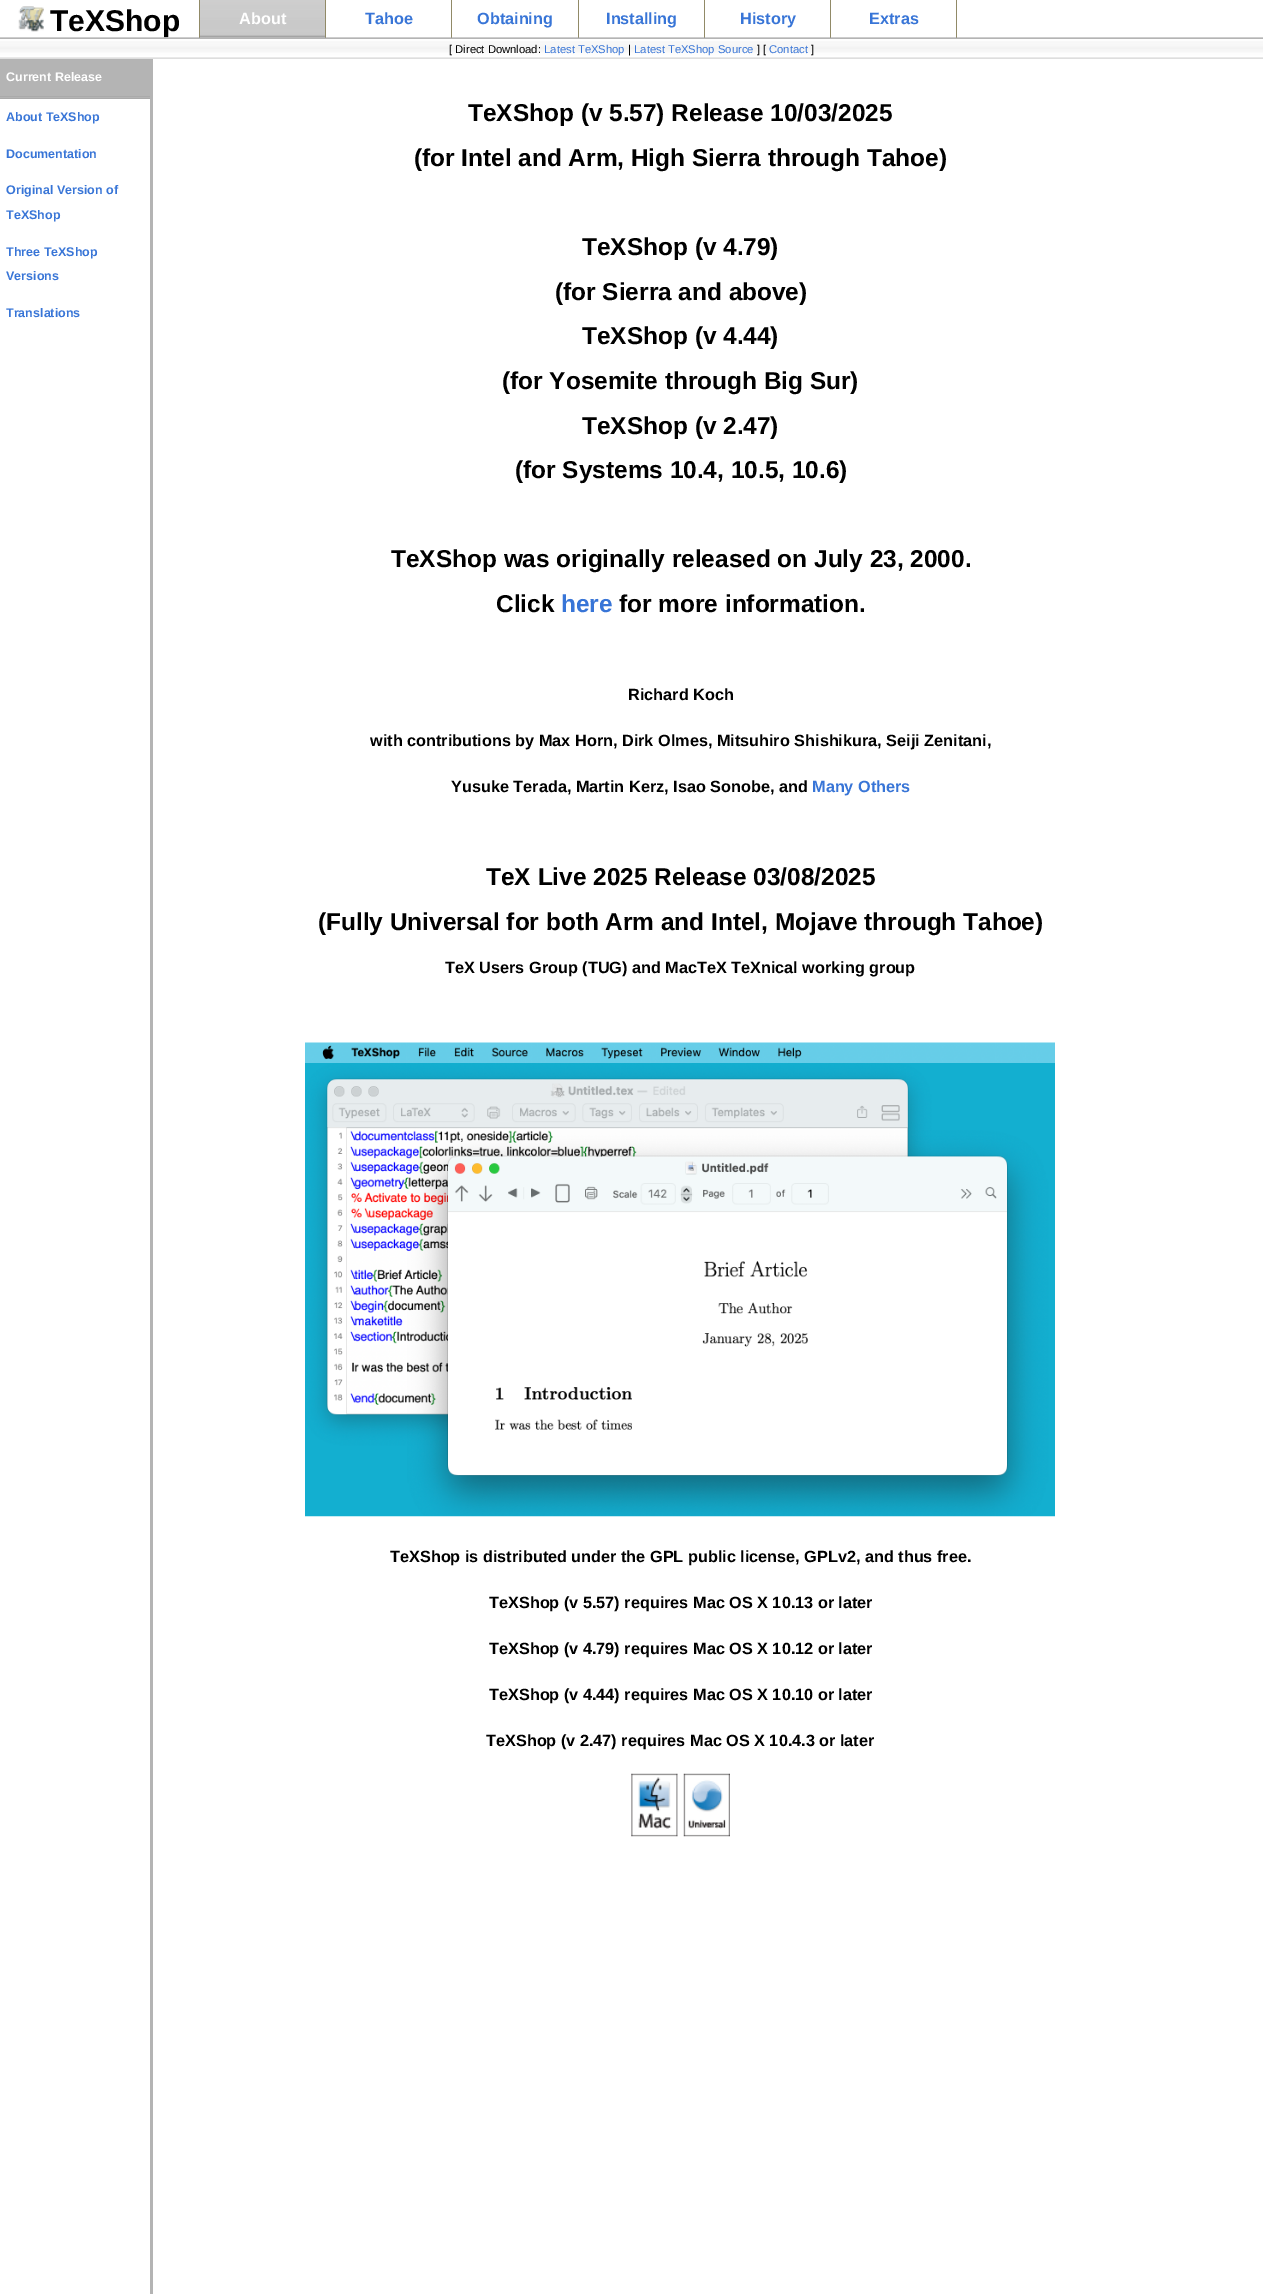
%!PS-Adobe-3.0
%%BoundingBox: 0 0 1263 2294
%%LanguageLevel: 3
%%Pages: 1
%%EndComments
%%BeginProlog
/setink { 3 { 255 div 3 1 roll } repeat setrgbcolor } def
/usefont { [ exch dup neg 0 0 3 -1 roll 0 0 ] selectfont } def
/drawtext { setink usefont moveto show } def
/fillbox { setink rectfill } def
/drawimage { 5 dict begin { /h /w /y /x /name } { exch def } forall
  gsave x y translate w h scale
  w h 8 [w 0 0 h 0 0] name (r) file false 3 colorimage grestore end } def
%%EndProlog
%%BeginSetup
<< /PageSize [1263 2294] >> setpagedevice
%%EndSetup
%%Page: 1 1
0 2294 translate 1 -1 scale
4 setmiterlimit
0 0 1263 2294 255 255 255 fillbox
199 0 1 38 145 138 103 fillbox
(assets/img1.rgb) 18 6 26 26 drawimage
(TeXShop) 50 31 /LiberationSans-Bold 30 0 0 0 drawtext
(assets/img2.rgb) 200 37 125 1 drawimage
(assets/img3.rgb) 200 0 125 38 drawimage
325 0 1 38 145 138 103 fillbox
(About) 239 24 /LiberationSans-Bold 16.25 255 255 255 drawtext
451 0 1 38 145 138 103 fillbox
(Tahoe) 365 24 /LiberationSans-Bold 16.25 56 117 215 drawtext
578 0 1 38 145 138 103 fillbox
(Obtaining) 477 24 /LiberationSans-Bold 16.25 56 117 215 drawtext
704 0 1 38 145 138 103 fillbox
(Installing) 606 24 /LiberationSans-Bold 16.25 56 117 215 drawtext
830 0 1 38 145 138 103 fillbox
(History) 740 24 /LiberationSans-Bold 16.25 56 117 215 drawtext
956 0 1 38 145 138 103 fillbox
(Extras) 869 24 /LiberationSans-Bold 16.25 56 117 215 drawtext
(assets/img4.rgb) 0 37 1263 22 drawimage
([ Direct Download:) 449 53 /LiberationSans-Regular 11.25 0 0 0 drawtext
(Latest TeXShop) 544 53 /LiberationSans-Regular 11.25 56 117 215 drawtext
(|) 628 53 /LiberationSans-Regular 11.25 0 0 0 drawtext
(Latest TeXShop Source) 634 53 /LiberationSans-Regular 11.25 56 117 215 drawtext
(] [) 757 53 /LiberationSans-Regular 11.25 0 0 0 drawtext
(Contact) 769 53 /LiberationSans-Regular 11.25 56 117 215 drawtext
(]) 811 53 /LiberationSans-Regular 11.25 0 0 0 drawtext
150 59 3 2235 180 180 180 fillbox
0 59 150 39 180 180 180 fillbox
0 98 150 1 170 170 170 fillbox
0 96 150 1 170 170 170 fillbox
(Current Release) 6 81 /LiberationSans-Bold 12.5 255 255 255 drawtext
(About TeXShop) 6 121 /LiberationSans-Bold 12.5 56 117 215 drawtext
(Documentation) 6 158 /LiberationSans-Bold 12.5 56 117 215 drawtext
(Original Version of) 6 194 /LiberationSans-Bold 12.5 56 117 215 drawtext
(TeXShop) 6 219 /LiberationSans-Bold 12.5 56 117 215 drawtext
(Three TeXShop) 6 256 /LiberationSans-Bold 12.5 56 117 215 drawtext
(Versions) 6 280 /LiberationSans-Bold 12.5 56 117 215 drawtext
(Translations) 6 317 /LiberationSans-Bold 12.5 56 117 215 drawtext
(TeXShop \(v 5.57\) Release 10/03/2025) 468 121 /LiberationSans-Bold 24.4 0 0 0 drawtext
(\(for Intel and Arm, High Sierra through Tahoe\)) 414 166 /LiberationSans-Bold 24.4 0 0 0 drawtext
(TeXShop \(v 4.79\)) 582 255 /LiberationSans-Bold 24.4 0 0 0 drawtext
(\(for Sierra and above\)) 555 300 /LiberationSans-Bold 24.4 0 0 0 drawtext
(TeXShop \(v 4.44\)) 582 344 /LiberationSans-Bold 24.4 0 0 0 drawtext
(\(for Yosemite through Big Sur\)) 502 389 /LiberationSans-Bold 24.4 0 0 0 drawtext
(TeXShop \(v 2.47\)) 582 434 /LiberationSans-Bold 24.4 0 0 0 drawtext
(\(for Systems 10.4, 10.5, 10.6\)) 515 478 /LiberationSans-Bold 24.4 0 0 0 drawtext
(TeXShop was originally released on July 23, 2000.) 391 567 /LiberationSans-Bold 24.4 0 0 0 drawtext
(Click) 496 612 /LiberationSans-Bold 24.4 0 0 0 drawtext
(here) 561 612 /LiberationSans-Bold 24.4 56 117 215 drawtext
(for more information.) 619 612 /LiberationSans-Bold 24.4 0 0 0 drawtext
(Richard Koch) 628 700 /LiberationSans-Bold 16.25 0 0 0 drawtext
(with contributions by Max Horn, Dirk Olmes, Mitsuhiro Shishikura, Seiji Zenitani,) 370 746 /LiberationSans-Bold 16.25 0 0 0 drawtext
(Yusuke Terada, Martin Kerz, Isao Sonobe, and) 451 792 /LiberationSans-Bold 16.25 0 0 0 drawtext
(Many Others) 812 792 /LiberationSans-Bold 16.25 56 117 215 drawtext
(TeX Live 2025 Release 03/08/2025) 486 885 /LiberationSans-Bold 24.4 0 0 0 drawtext
(\(Fully Universal for both Arm and Intel, Mojave through Tahoe\)) 318 930 /LiberationSans-Bold 24.4 0 0 0 drawtext
(TeX Users Group \(TUG\) and MacTeX TeXnical working group) 445 973 /LiberationSans-Bold 16.25 0 0 0 drawtext
(assets/img5.rgb) 305 1042 750 475 drawimage
(TeXShop is distributed under the GPL public license, GPLv2, and thus free.) 390 1562 /LiberationSans-Bold 16.25 0 0 0 drawtext
(TeXShop \(v 5.57\) requires Mac OS X 10.13 or later) 489 1608 /LiberationSans-Bold 16.25 0 0 0 drawtext
(TeXShop \(v 4.79\) requires Mac OS X 10.12 or later) 489 1654 /LiberationSans-Bold 16.25 0 0 0 drawtext
(TeXShop \(v 4.44\) requires Mac OS X 10.10 or later) 489 1700 /LiberationSans-Bold 16.25 0 0 0 drawtext
(TeXShop \(v 2.47\) requires Mac OS X 10.4.3 or later) 486 1746 /LiberationSans-Bold 16.25 0 0 0 drawtext
(assets/img6.rgb) 631 1773 99 64 drawimage
showpage
%%EOF
